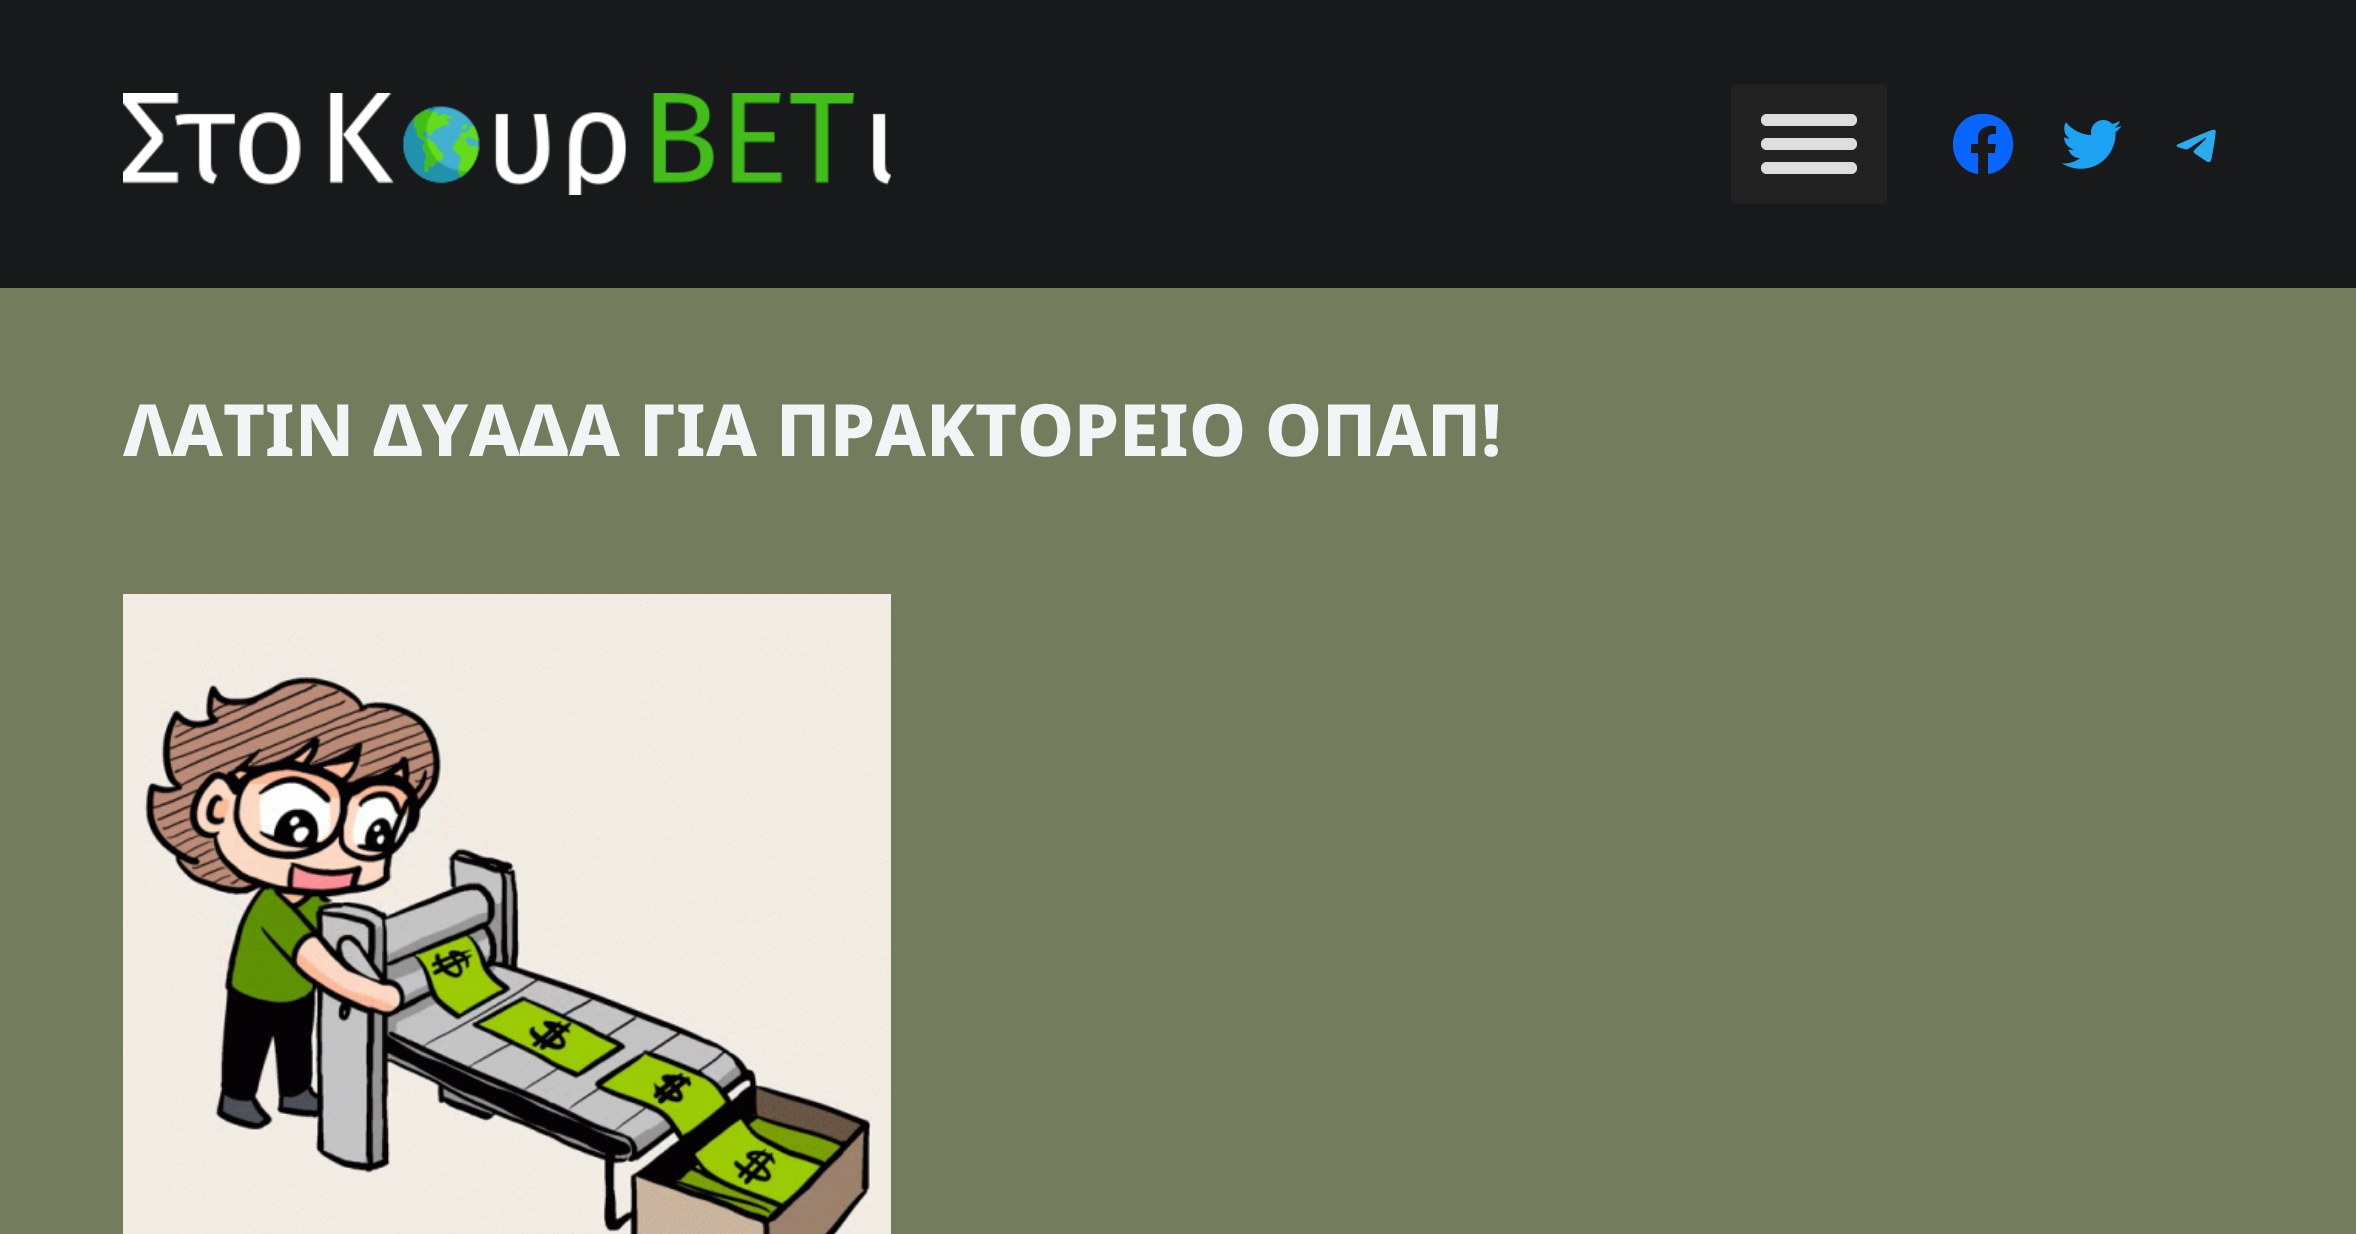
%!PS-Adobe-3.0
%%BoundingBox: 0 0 2356 1234
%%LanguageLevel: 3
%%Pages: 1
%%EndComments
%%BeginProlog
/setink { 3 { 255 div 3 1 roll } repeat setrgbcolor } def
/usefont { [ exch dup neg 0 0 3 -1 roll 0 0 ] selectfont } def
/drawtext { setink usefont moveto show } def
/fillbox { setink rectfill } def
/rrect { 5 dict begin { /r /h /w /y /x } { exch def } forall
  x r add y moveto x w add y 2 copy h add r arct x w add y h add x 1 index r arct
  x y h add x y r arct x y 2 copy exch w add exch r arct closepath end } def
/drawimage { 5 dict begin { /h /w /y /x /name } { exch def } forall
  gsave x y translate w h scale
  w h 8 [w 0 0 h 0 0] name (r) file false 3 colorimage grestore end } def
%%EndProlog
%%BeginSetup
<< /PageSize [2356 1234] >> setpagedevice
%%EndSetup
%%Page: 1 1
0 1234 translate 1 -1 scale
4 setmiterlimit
0 0 2356 1234 116 124 94 fillbox
0 0 2356 288 24 25 26 fillbox
(assets/img1.rgb) 123 93 768 102 drawimage
34 34 34 setink
1731 84 156 120 6 rrect fill
221 221 221 setink
1761 114 96 12 6 rrect fill
1761 138 96 12 6 rrect fill
1761 162 96 12 6 rrect fill
8 102 255 setink
1983 114 moveto 1946 114 1942 168 1978 174 curveto 1978 153 lineto 1971 153 lineto 1971 144 lineto 1978 144 lineto 1978 135 lineto 1980 126 1989 125 1996 126 curveto 1996 134 lineto 1987 134 1988 136 1988 144 curveto 1996 144 lineto 1995 153 lineto 1988 153 lineto 1988 174 lineto 2024 168 2020 114 1983 114 curveto closepath fill
(assets/img2.rgb) 2062 120 60 49 drawimage
(assets/img3.rgb) 2176 129 40 34 drawimage
(ΛΑΤΙΝ ΔΥΑΔΑ ΓΙΑ ΠΡΑΚΤΟΡΕΙΟ ΟΠΑΠ!) 123 456 /NotoSans-ExtraBold 72 243 244 246 drawtext
(assets/img4.rgb) 123 594 768 640 drawimage
showpage
%%EOF
